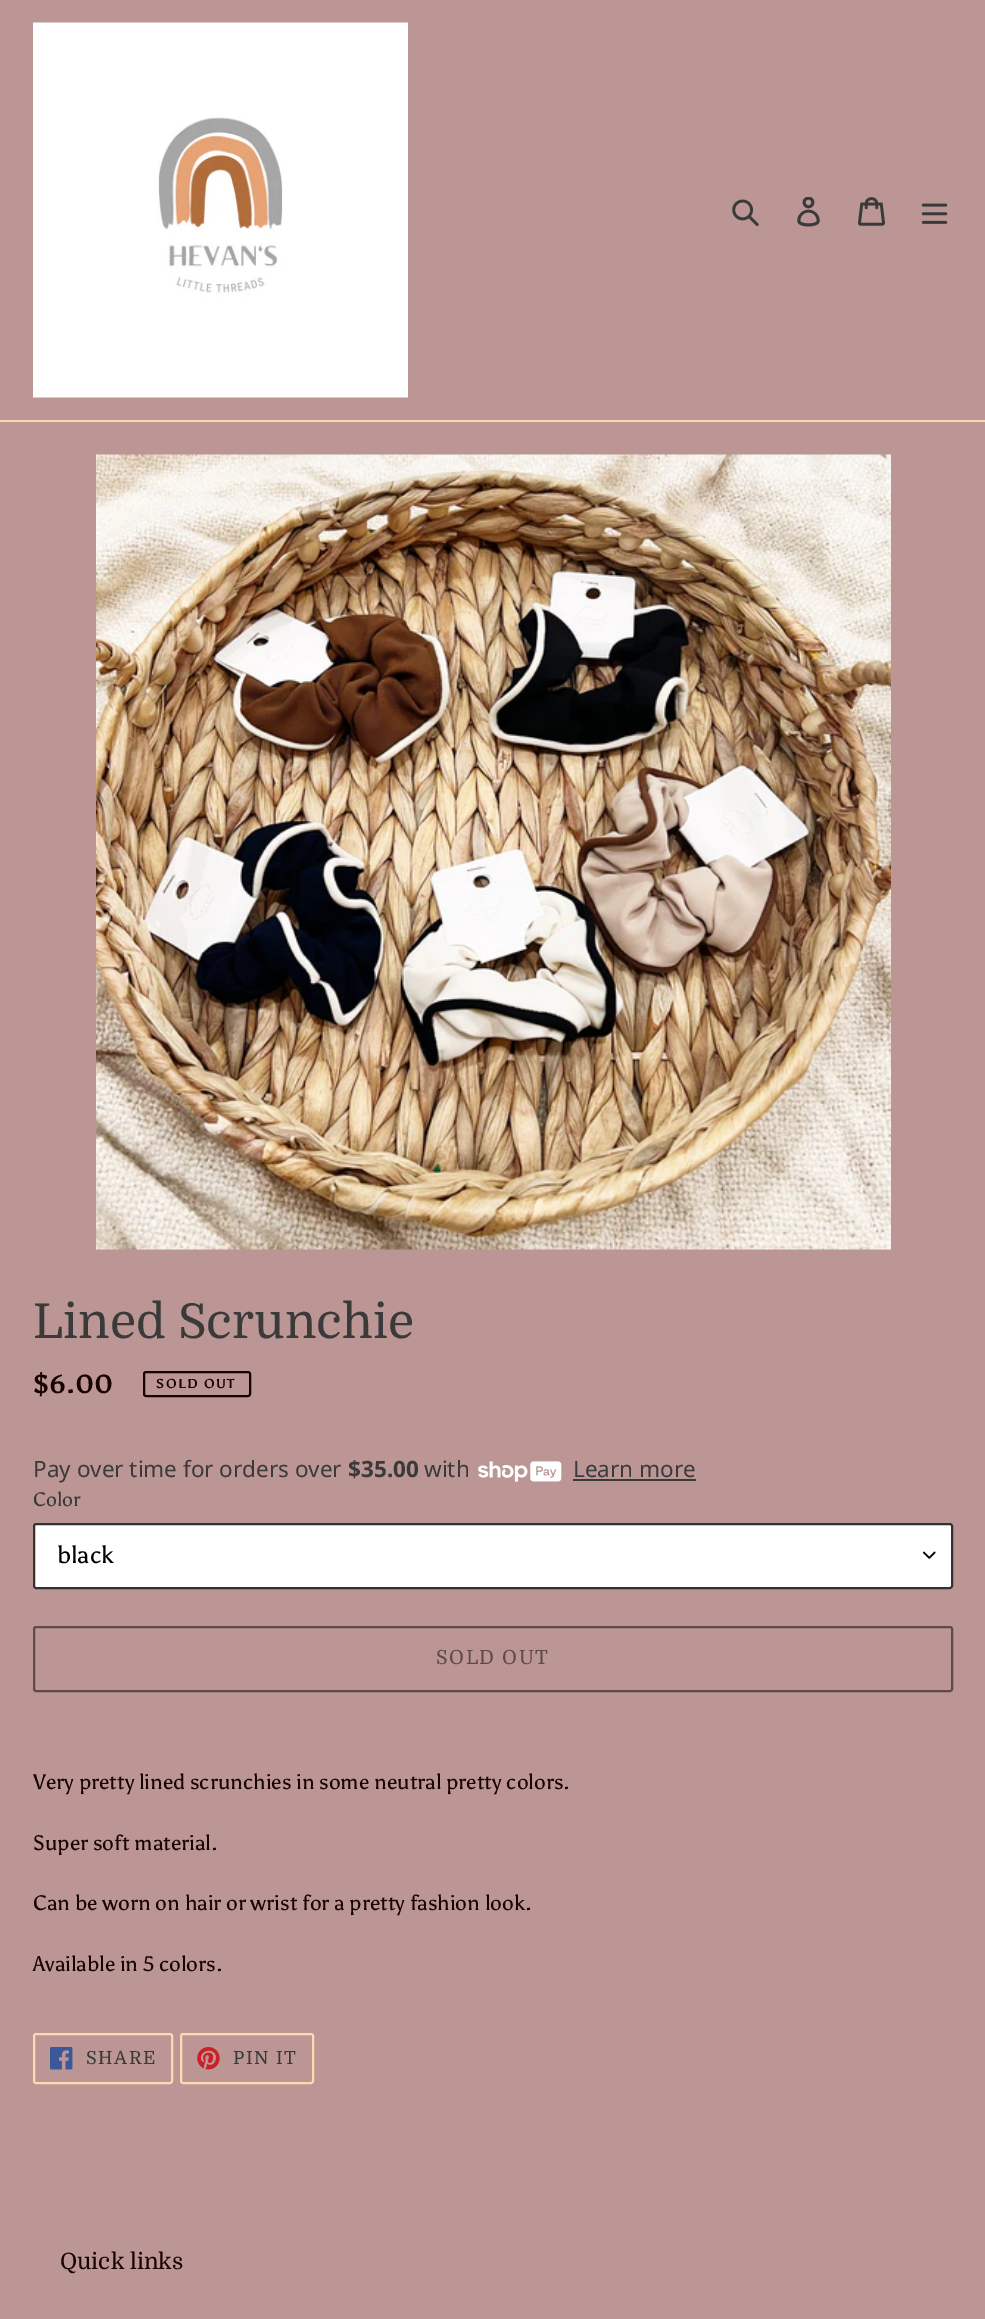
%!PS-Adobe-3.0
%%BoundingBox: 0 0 985 2319
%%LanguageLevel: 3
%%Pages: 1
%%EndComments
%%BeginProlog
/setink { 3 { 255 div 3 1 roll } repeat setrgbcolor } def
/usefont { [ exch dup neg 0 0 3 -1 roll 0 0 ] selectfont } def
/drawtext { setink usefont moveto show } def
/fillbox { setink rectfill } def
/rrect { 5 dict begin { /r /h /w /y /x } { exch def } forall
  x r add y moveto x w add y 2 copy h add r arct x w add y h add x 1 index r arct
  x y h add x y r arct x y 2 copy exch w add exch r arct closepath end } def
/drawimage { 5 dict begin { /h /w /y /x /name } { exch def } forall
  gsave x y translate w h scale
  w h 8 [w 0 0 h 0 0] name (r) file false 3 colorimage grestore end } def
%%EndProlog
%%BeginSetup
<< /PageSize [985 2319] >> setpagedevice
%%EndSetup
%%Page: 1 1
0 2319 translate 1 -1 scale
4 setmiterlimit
0 0 985 2319 188 149 149 fillbox
0 420 985 2 255 215 177 fillbox
(assets/img1.rgb) 33 22 375 376 drawimage
(assets/img2.rgb) 732 199 27 28 drawimage
(assets/img3.rgb) 797 197 23 30 drawimage
(assets/img4.rgb) 858 197 27 29 drawimage
(assets/img5.rgb) 921 203 27 21 drawimage
(assets/img6.rgb) 96 454 795 796 drawimage
(Lined Scrunchie) 33 1338 /Domine-Regular 48 58 58 58 drawtext
($6.00) 33 1393 /Asul-Bold 26 24 3 3 drawtext
2 setlinewidth
144 1372 106 24 2 rrect stroke
/Asul-Bold 13 usefont
156 1388 moveto 1.5 0 (SOLD OUT) ashow
(Pay over time for orders over) 33 1477 /NotoSans-Regular 22.5 58 58 58 drawtext
($35.00) 348 1477 /NotoSans-Bold 22.5 58 58 58 drawtext
(with) 424 1477 /NotoSans-Regular 22.5 58 58 58 drawtext
(assets/img7.rgb) 478 1461 84 21 drawimage
(Learn more) 573 1477 /NotoSans-Regular 22.5 58 58 58 drawtext
573 1479 123 2 58 58 58 fillbox
(Color) 33 1506 /Asul-Regular 19.5 58 58 58 drawtext
255 255 255 setink
33 1523 920 66 3 rrect fill
(assets/img8.rgb) 923 1551 13 8 drawimage
51 50 50 setink
34 1524 918 64 2 rrect stroke
(black) 57 1563 /Asul-Regular 24 0 0 0 drawtext
94 75 75 setink
34 1627 918 64 2 rrect stroke
/Domine-Regular 19.5 usefont
436 1664 moveto 1.5 0 (SOLD OUT) ashow
(Very pretty lined scrunchies in some neutral pretty colors.) 33 1789 /Asul-Regular 21 24 3 3 drawtext
(Super soft material.) 33 1850 /Asul-Regular 21 24 3 3 drawtext
(Can be worn on hair or wrist for a pretty fashion look.) 33 1910 /Asul-Regular 21 24 3 3 drawtext
(Available in 5 colors.) 33 1971 /Asul-Regular 21 24 3 3 drawtext
255 215 177 setink
34 2034 138 49 2 rrect stroke
(assets/img9.rgb) 50 2047 23 23 drawimage
/Domine-Regular 18 usefont
58 58 58 setink
86 2064 moveto 1.5 0 (SHARE) ashow
255 215 177 setink
181 2034 132 49 2 rrect stroke
(assets/img10.rgb) 197 2047 23 23 drawimage
58 58 58 setink
233 2064 moveto 1.5 0 (PIN IT) ashow
(Quick links) 60 2269 /Domine-Regular 22.5 24 3 3 drawtext
showpage
%%EOF
